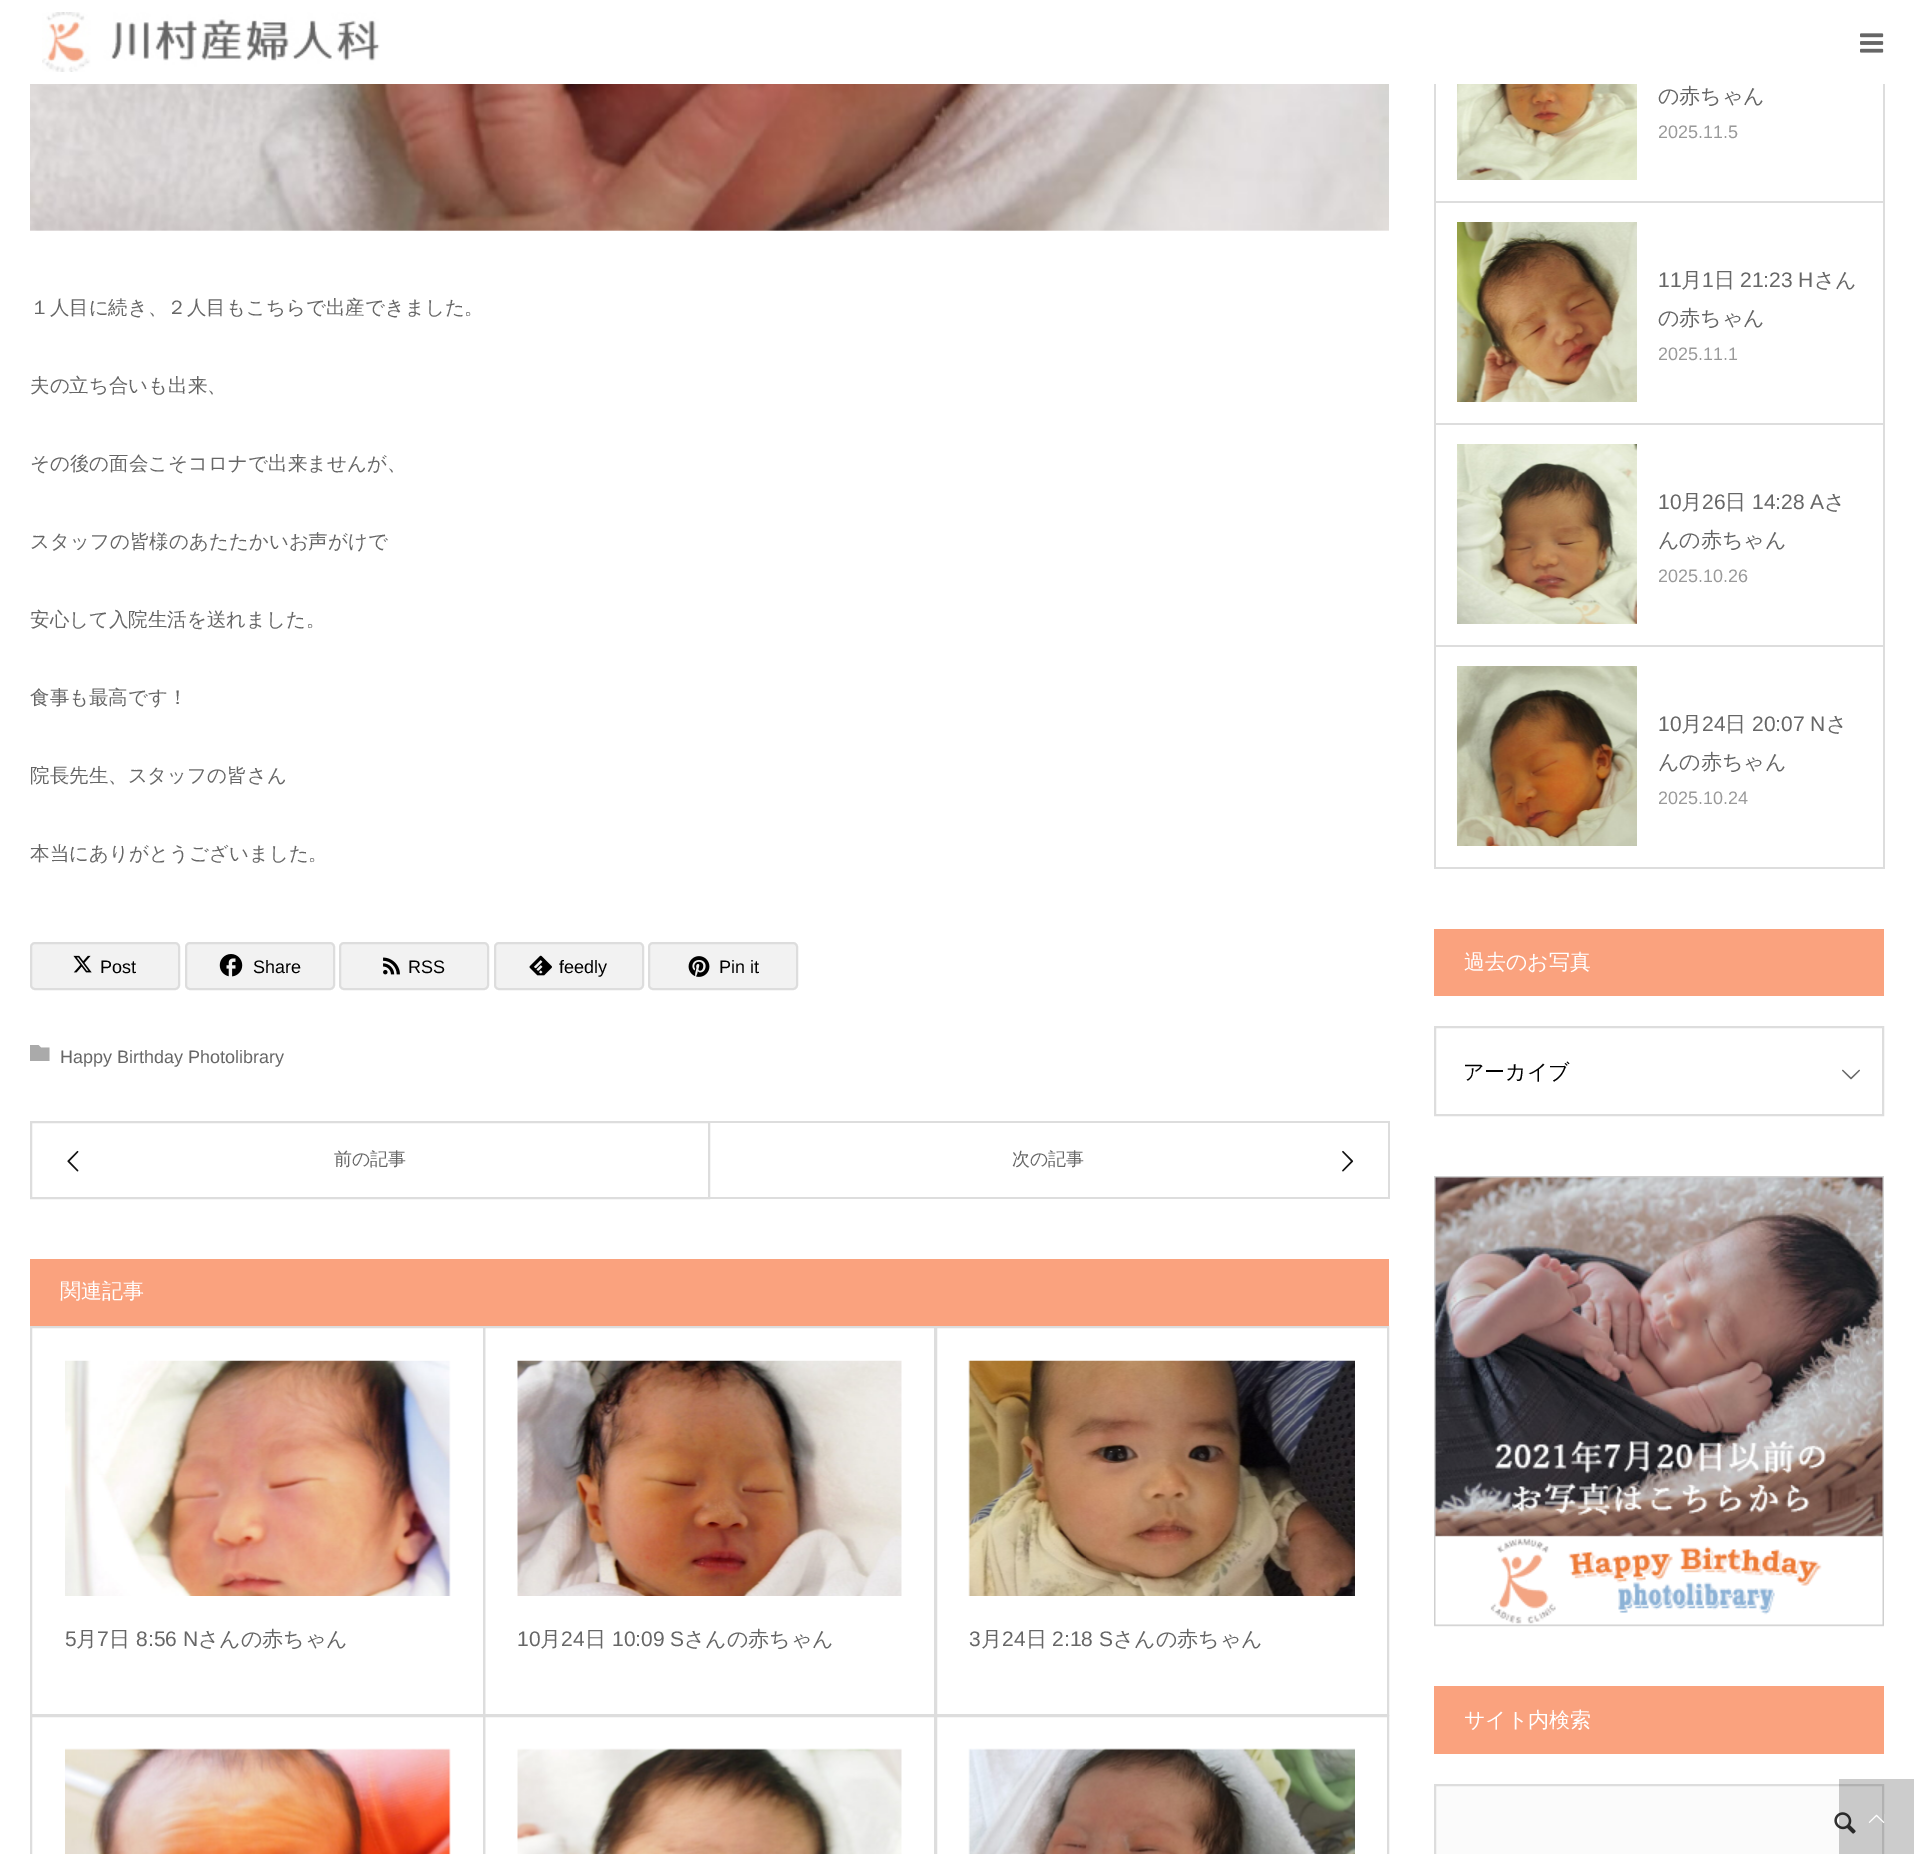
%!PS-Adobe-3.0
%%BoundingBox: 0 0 1914 1854
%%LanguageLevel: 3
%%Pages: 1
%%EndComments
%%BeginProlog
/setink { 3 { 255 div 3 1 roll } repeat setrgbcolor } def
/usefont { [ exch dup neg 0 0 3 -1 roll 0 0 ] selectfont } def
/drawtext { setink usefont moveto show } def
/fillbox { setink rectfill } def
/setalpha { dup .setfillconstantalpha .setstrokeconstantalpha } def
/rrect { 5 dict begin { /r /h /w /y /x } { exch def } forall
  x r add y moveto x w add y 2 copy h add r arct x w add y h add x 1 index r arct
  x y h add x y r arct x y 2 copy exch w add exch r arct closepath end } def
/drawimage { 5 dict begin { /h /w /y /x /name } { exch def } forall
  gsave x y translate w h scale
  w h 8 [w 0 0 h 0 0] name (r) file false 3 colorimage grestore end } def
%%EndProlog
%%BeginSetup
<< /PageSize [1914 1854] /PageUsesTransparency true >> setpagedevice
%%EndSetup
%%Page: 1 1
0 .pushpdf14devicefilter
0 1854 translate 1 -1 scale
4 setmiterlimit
0 0 1914 1854 255 255 255 fillbox
(assets/img1.rgb) 42 12 338 60 drawimage
(assets/img2.rgb) 1860 33 24 20 drawimage
(assets/img3.rgb) 30 84 1359 147 drawimage
(１人目に続き、２人目もこちらで出産できました。) 30 314 /WenQuanYiZenHei-Medium 19.5 102 102 102 drawtext
(夫の立ち合いも出来、) 30 392 /WenQuanYiZenHei-Medium 19.5 102 102 102 drawtext
(その後の面会こそコロナで出来ませんが、) 30 470 /WenQuanYiZenHei-Medium 19.5 102 102 102 drawtext
(スタッフの皆様のあたたかいお声がけで) 30 548 /WenQuanYiZenHei-Medium 19.5 102 102 102 drawtext
(安心して入院生活を送れました。) 30 626 /WenQuanYiZenHei-Medium 19.5 102 102 102 drawtext
(食事も最高です！) 30 704 /WenQuanYiZenHei-Medium 19.5 102 102 102 drawtext
(院長先生、スタッフの皆さん) 30 782 /WenQuanYiZenHei-Medium 19.5 102 102 102 drawtext
(本当にありがとうございました。) 30 860 /WenQuanYiZenHei-Medium 19.5 102 102 102 drawtext
242 242 242 setink
31 943 148 46 4 rrect gsave fill grestore
221 221 221 setink
2 setlinewidth
stroke
(assets/img4.rgb) 73 955 19 18 drawimage
(Post) 100 973 /LiberationSans-Regular 18 0 0 0 drawtext
242 242 242 setink
186 943 148 46 4 rrect gsave fill grestore
221 221 221 setink
stroke
(assets/img5.rgb) 219 954 24 23 drawimage
(Share) 253 973 /LiberationSans-Regular 18 0 0 0 drawtext
242 242 242 setink
340 943 148 46 4 rrect gsave fill grestore
221 221 221 setink
stroke
(assets/img6.rgb) 383 957 17 18 drawimage
(RSS) 408 973 /LiberationSans-Regular 18 0 0 0 drawtext
242 242 242 setink
495 943 148 46 4 rrect gsave fill grestore
221 221 221 setink
stroke
(assets/img7.rgb) 529 955 23 21 drawimage
(feedly) 559 973 /LiberationSans-Regular 18 0 0 0 drawtext
242 242 242 setink
649 943 148 46 4 rrect gsave fill grestore
221 221 221 setink
stroke
(assets/img8.rgb) 688 956 22 21 drawimage
(Pin it) 719 973 /LiberationSans-Regular 18 0 0 0 drawtext
170 170 170 setink
38.5 1045 moveto 41 1047.5 lineto 49.5 1047.5 lineto 49.5 1061 lineto 30 1061 lineto 30 1045 lineto closepath fill
(Happy Birthday Photolibrary) 60 1063 /LiberationSans-Regular 18 102 102 102 drawtext
221 221 221 setink
31 1122 678 76 rectstroke
(assets/img9.rgb) 67 1150 12 22 drawimage
(前の記事) 334 1165 /WenQuanYiZenHei-Medium 18 102 102 102 drawtext
710 1121 679 2 221 221 221 fillbox
1388 1121 2 78 221 221 221 fillbox
710 1197 679 2 221 221 221 fillbox
(次の記事) 1012 1165 /WenQuanYiZenHei-Medium 18 102 102 102 drawtext
(assets/img10.rgb) 1342 1150 12 22 drawimage
30 1259 1359 67 250 162 126 fillbox
(関連記事) 60 1298 /WenQuanYiZenHei-Medium 21 255 255 255 drawtext
221 221 221 setink
31 1327 453 388 rectstroke
(assets/img11.rgb) 65 1360 386 236 drawimage
(5) 65 1646 /LiberationSans-Regular 21 102 102 102 drawtext
(月) 76 1646 /WenQuanYiZenHei-Medium 21 102 102 102 drawtext
(7) 97 1646 /LiberationSans-Regular 21 102 102 102 drawtext
(日) 109 1646 /WenQuanYiZenHei-Medium 21 102 102 102 drawtext
(8:56 N) 136 1646 /LiberationSans-Regular 21 102 102 102 drawtext
(さんの赤ちゃん) 198 1646 /WenQuanYiZenHei-Medium 21 102 102 102 drawtext
221 221 221 setink
484 1327 451 388 rectstroke
(assets/img12.rgb) 517 1360 385 236 drawimage
(10) 517 1646 /LiberationSans-Regular 21 102 102 102 drawtext
(月) 540 1646 /WenQuanYiZenHei-Medium 21 102 102 102 drawtext
(24) 561 1646 /LiberationSans-Regular 21 102 102 102 drawtext
(日) 585 1646 /WenQuanYiZenHei-Medium 21 102 102 102 drawtext
(10:09 S) 612 1646 /LiberationSans-Regular 21 102 102 102 drawtext
(さんの赤ちゃん) 684 1646 /WenQuanYiZenHei-Medium 21 102 102 102 drawtext
221 221 221 setink
936 1327 452 388 rectstroke
(assets/img13.rgb) 968 1360 387 236 drawimage
(3) 969 1646 /LiberationSans-Regular 21 102 102 102 drawtext
(月) 981 1646 /WenQuanYiZenHei-Medium 21 102 102 102 drawtext
(24) 1002 1646 /LiberationSans-Regular 21 102 102 102 drawtext
(日) 1026 1646 /WenQuanYiZenHei-Medium 21 102 102 102 drawtext
(2:18 S) 1052 1646 /LiberationSans-Regular 21 102 102 102 drawtext
(さんの赤ちゃん) 1113 1646 /WenQuanYiZenHei-Medium 21 102 102 102 drawtext
221 221 221 setink
31 1716 453 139 rectstroke
(assets/img14.rgb) 65 1748 386 106 drawimage
484 1716 451 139 rectstroke
(assets/img15.rgb) 517 1748 385 106 drawimage
936 1716 452 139 rectstroke
(assets/img16.rgb) 968 1748 387 106 drawimage
1883 84 2 785 221 221 221 fillbox
1434 867 450 2 221 221 221 fillbox
1434 84 2 785 221 221 221 fillbox
1436 201 447 2 221 221 221 fillbox
(assets/img17.rgb) 1457 84 180 96 drawimage
(の赤ちゃん) 1658 103 /WenQuanYiZenHei-Medium 21 102 102 102 drawtext
(2025.11.5) 1658 138 /LiberationSans-Regular 18 153 153 153 drawtext
1436 423 447 2 221 221 221 fillbox
(assets/img18.rgb) 1457 222 180 180 drawimage
(11) 1658 287 /LiberationSans-Regular 21 102 102 102 drawtext
(月) 1681 287 /WenQuanYiZenHei-Medium 21 102 102 102 drawtext
(1) 1702 287 /LiberationSans-Regular 21 102 102 102 drawtext
(日) 1714 287 /WenQuanYiZenHei-Medium 21 102 102 102 drawtext
(21:23 H) 1740 287 /LiberationSans-Regular 21 102 102 102 drawtext
(さん) 1814 287 /WenQuanYiZenHei-Medium 21 102 102 102 drawtext
(の赤ちゃん) 1658 325 /WenQuanYiZenHei-Medium 21 102 102 102 drawtext
(2025.11.1) 1658 360 /LiberationSans-Regular 18 153 153 153 drawtext
1436 645 447 2 221 221 221 fillbox
(assets/img19.rgb) 1457 444 180 180 drawimage
(10) 1658 509 /LiberationSans-Regular 21 102 102 102 drawtext
(月) 1681 509 /WenQuanYiZenHei-Medium 21 102 102 102 drawtext
(26) 1702 509 /LiberationSans-Regular 21 102 102 102 drawtext
(日) 1725 509 /WenQuanYiZenHei-Medium 21 102 102 102 drawtext
(14:28 A) 1752 509 /LiberationSans-Regular 21 102 102 102 drawtext
(さ) 1824 509 /WenQuanYiZenHei-Medium 21 102 102 102 drawtext
(んの赤ちゃん) 1658 547 /WenQuanYiZenHei-Medium 21 102 102 102 drawtext
(2025.10.26) 1658 582 /LiberationSans-Regular 18 153 153 153 drawtext
(assets/img20.rgb) 1457 666 180 180 drawimage
(10) 1658 731 /LiberationSans-Regular 21 102 102 102 drawtext
(月) 1681 731 /WenQuanYiZenHei-Medium 21 102 102 102 drawtext
(24) 1702 731 /LiberationSans-Regular 21 102 102 102 drawtext
(日) 1725 731 /WenQuanYiZenHei-Medium 21 102 102 102 drawtext
(20:07 N) 1752 731 /LiberationSans-Regular 21 102 102 102 drawtext
(さ) 1826 731 /WenQuanYiZenHei-Medium 21 102 102 102 drawtext
(んの赤ちゃん) 1658 769 /WenQuanYiZenHei-Medium 21 102 102 102 drawtext
(2025.10.24) 1658 804 /LiberationSans-Regular 18 153 153 153 drawtext
1434 929 450 67 250 162 126 fillbox
(過去のお写真) 1464 969 /WenQuanYiZenHei-Medium 21 255 255 255 drawtext
221 221 221 setink
1435 1027 448 88 rectstroke
(アーカイブ) 1463 1079 /WenQuanYiZenHei-Medium 21 0 0 0 drawtext
(assets/img21.rgb) 1842 1069 18 11 drawimage
(assets/img22.rgb) 1434 1176 450 451 drawimage
1434 1686 450 68 250 162 126 fillbox
(サイト内検索) 1464 1727 /WenQuanYiZenHei-Medium 21 255 255 255 drawtext
251 251 251 setink
1435 1785 moveto 1883 1785 lineto 1883 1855 lineto 1435 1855 lineto closepath gsave fill grestore
221 221 221 setink
stroke
(assets/img23.rgb) 1834 1812 22 22 drawimage
0.2 setalpha
1839 1779 75 75 0 0 0 fillbox
1 setalpha
(assets/img24.rgb) 1868 1814 17 9 drawimage
.poppdf14devicefilter showpage
%%EOF
